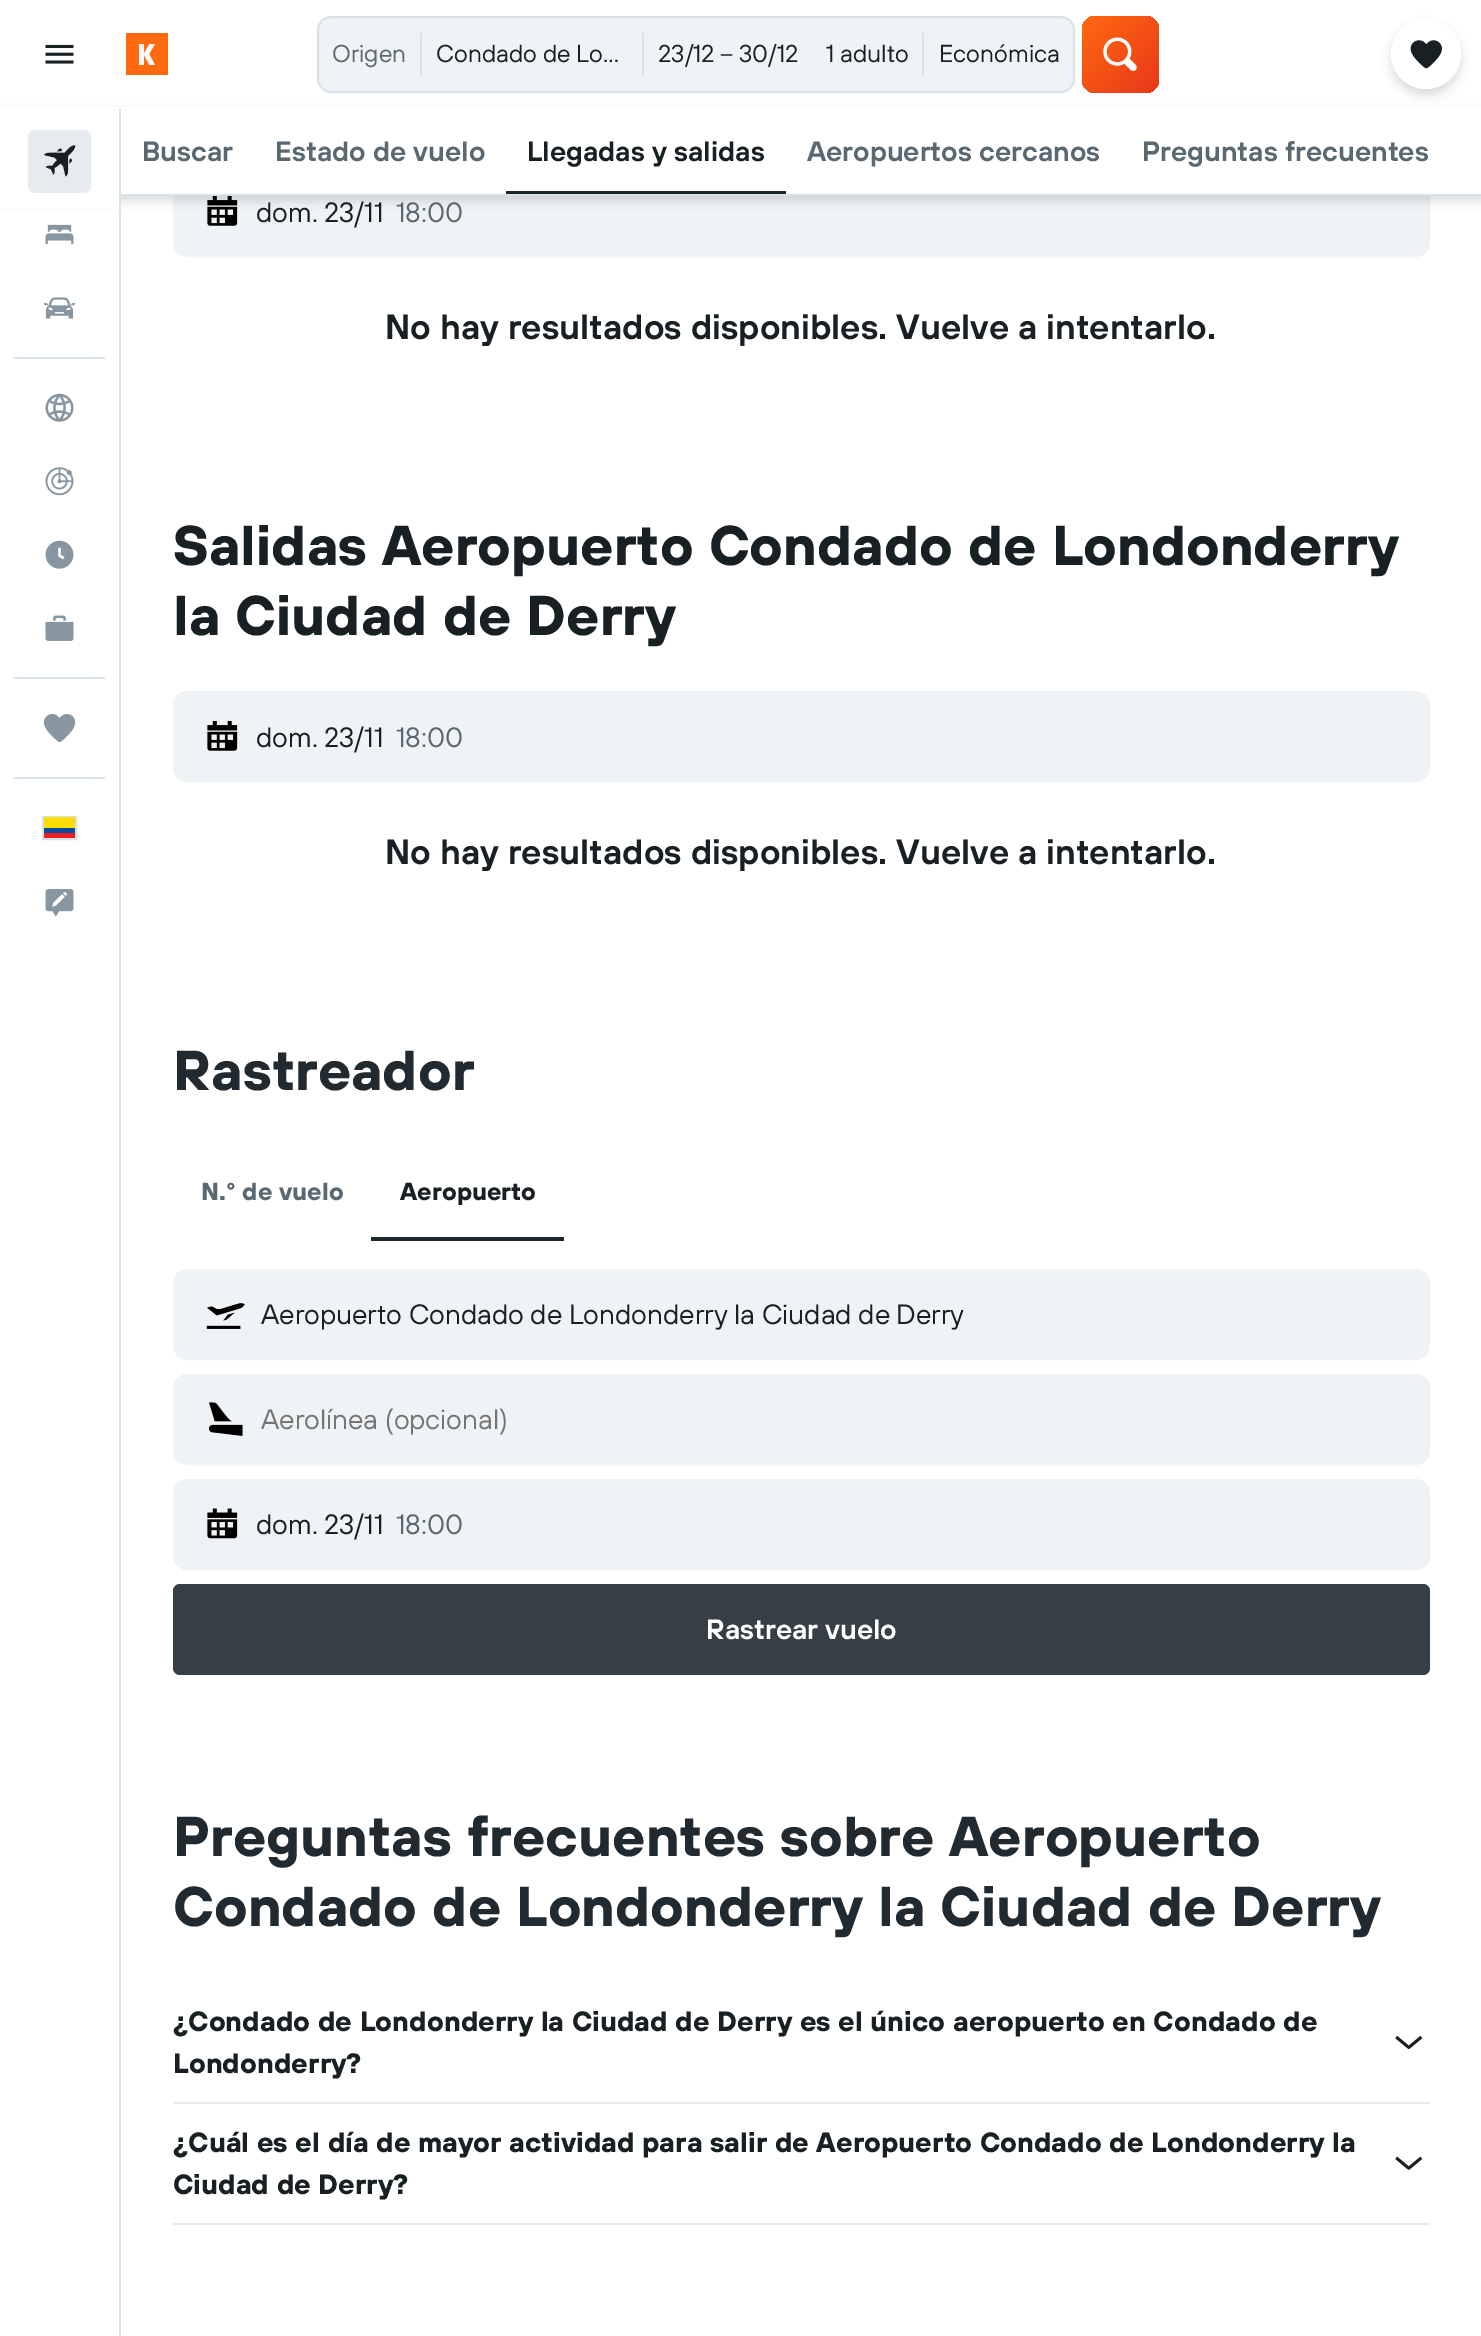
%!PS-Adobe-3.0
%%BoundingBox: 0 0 1481 2336
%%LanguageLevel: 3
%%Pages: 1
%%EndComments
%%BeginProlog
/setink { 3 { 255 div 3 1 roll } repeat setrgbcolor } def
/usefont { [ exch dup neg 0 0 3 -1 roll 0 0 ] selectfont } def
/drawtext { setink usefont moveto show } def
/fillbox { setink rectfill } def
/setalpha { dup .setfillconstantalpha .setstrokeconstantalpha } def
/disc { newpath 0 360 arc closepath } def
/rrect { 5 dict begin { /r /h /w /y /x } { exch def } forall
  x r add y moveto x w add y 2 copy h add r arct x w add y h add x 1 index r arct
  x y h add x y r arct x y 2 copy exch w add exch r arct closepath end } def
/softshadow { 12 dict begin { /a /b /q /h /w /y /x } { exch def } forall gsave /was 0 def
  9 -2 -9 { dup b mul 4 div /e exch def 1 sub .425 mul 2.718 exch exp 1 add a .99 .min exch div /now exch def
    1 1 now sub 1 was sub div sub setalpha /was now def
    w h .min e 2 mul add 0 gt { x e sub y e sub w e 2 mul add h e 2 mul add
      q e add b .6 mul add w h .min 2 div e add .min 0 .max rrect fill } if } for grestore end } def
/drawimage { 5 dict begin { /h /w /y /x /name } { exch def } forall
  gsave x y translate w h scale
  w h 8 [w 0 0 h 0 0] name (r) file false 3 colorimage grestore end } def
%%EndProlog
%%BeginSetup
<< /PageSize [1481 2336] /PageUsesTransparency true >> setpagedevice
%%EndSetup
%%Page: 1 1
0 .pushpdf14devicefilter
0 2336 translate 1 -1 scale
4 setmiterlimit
0 0 1481 2336 255 255 255 fillbox
(assets/img1.rgb) 45 44 29 20 drawimage
126 33 42 42 255 105 15 fillbox
250 250 252 setink
144 53.5 moveto 144 44 lineto 139 44 lineto 139 65 lineto 144 65 lineto 144 55 lineto 149.5 65 lineto 155 65 lineto 149 54 lineto 155 44 lineto 149.5 44 lineto closepath eofill
240 243 245 setink
318 17 756 75 13 rrect gsave fill grestore
217 226 232 setink
2 setlinewidth
stroke
(Origen) 332 62 /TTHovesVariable-Regular 24.5 90 104 114 drawtext
420 33 2 42 217 226 232 fillbox
(Condado de Lo…) 436 62 /TTHovesVariable-Regular 24.5 25 32 36 drawtext
642 33 2 42 217 226 232 fillbox
(23/12 – 30/12) 658 62 /TTHovesVariable-Regular 24.5 25 32 36 drawtext
(1 adulto) 826 62 /TTHovesVariable-Regular 24.5 25 32 36 drawtext
922 33 2 42 217 226 232 fillbox
(Económica) 939 62 /TTHovesVariable-Regular 24.5 25 32 36 drawtext
gsave 1082 16 77 77 14 rrect clip newpath
<< /ShadingType 2 /ColorSpace /DeviceRGB /Coords [1082 16 1159 93] /Extend [true true] /Function << /FunctionType 2 /Domain [0 1] /C0 [1 0.412 0.059] /C1 [0.91 0.22 0.106] /N 1 >> >> shfill grestore
(assets/img2.rgb) 1103 37 34 34 drawimage
240 243 245 setink
174 167 1255 89 13 rrect gsave fill grestore
stroke
(assets/img13.rgb) 207 196 31 30 drawimage
25 32 36 setink
0 112 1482 89 0 5 0.16 softshadow
0 107 1481 87 255 255 255 fillbox
25 32 36 setink
1391 25 70 70 35 5 0.16 softshadow
255 255 255 setink
1426 54 35 disc fill
(assets/img3.rgb) 1410 40 32 29 drawimage
0 194 119 14 255 255 255 fillbox
119 109 2 2227 217 226 232 fillbox
230 235 239 setink
28 130 63 63 7 rrect fill
(assets/img4.rgb) 43 145 33 32 drawimage
(assets/img5.rgb) 45 224 29 21 drawimage
(assets/img6.rgb) 43 297 33 22 drawimage
14 357 91 2 217 226 232 fillbox
(assets/img7.rgb) 45 393 29 29 drawimage
(assets/img8.rgb) 45 467 29 29 drawimage
(assets/img9.rgb) 45 540 29 29 drawimage
(assets/img10.rgb) 45 615 29 26 drawimage
14 677 91 2 217 226 232 fillbox
(assets/img11.rgb) 43 714 33 28 drawimage
14 777 91 2 217 226 232 fillbox
43 817 33 22 rectstroke
44 833 31 5 237 28 36 fillbox
44 828 31 5 3 78 162 fillbox
44 817 31 11 255 221 0 fillbox
(assets/img12.rgb) 45 889 29 28 drawimage
121 194 1360 2 217 226 232 fillbox
(Buscar) 142 161 /TTHovesVariable-SemiBold 28 90 104 114 drawtext
(Estado de vuelo) 275 161 /TTHovesVariable-SemiBold 28 90 104 114 drawtext
506 191 280 3 31 40 45 fillbox
(Llegadas y salidas) 527 161 /TTHovesVariable-SemiBold 28 25 32 36 drawtext
(Aeropuertos cercanos) 807 161 /TTHovesVariable-SemiBold 28 90 104 114 drawtext
(Preguntas frecuentes) 1142 161 /TTHovesVariable-SemiBold 28 90 104 114 drawtext
(dom. 23/11) 256 222 /TTHovesVariable-Regular 28 25 32 36 drawtext
(18:00) 396 222 /TTHovesVariable-Regular 28 90 104 114 drawtext
(No hay resultados disponibles. Vuelve a intentarlo.) 385 339 /TTHovesVariable-SemiBold 35 25 32 36 drawtext
(Salidas Aeropuerto Condado de Londonderry) 173 565 /TTHovesVariable-Bold 56 25 32 36 drawtext
(la Ciudad de Derry) 173 635 /TTHovesVariable-Bold 56 25 32 36 drawtext
240 243 245 setink
174 692 1255 89 13 rrect gsave fill grestore
stroke
(assets/img13.rgb) 207 721 31 30 drawimage
(dom. 23/11) 256 747 /TTHovesVariable-Regular 28 25 32 36 drawtext
(18:00) 396 747 /TTHovesVariable-Regular 28 90 104 114 drawtext
(No hay resultados disponibles. Vuelve a intentarlo.) 385 864 /TTHovesVariable-SemiBold 35 25 32 36 drawtext
(Rastreador) 173 1090 /TTHovesVariable-Bold 56 33 42 48 drawtext
(N.° de vuelo) 201 1200 /TTHovesVariable-Bold 24.5 90 104 114 drawtext
371 1237 193 4 31 40 45 fillbox
(Aeropuerto) 400 1200 /TTHovesVariable-Bold 24.5 25 32 36 drawtext
240 243 245 setink
174 1270 1255 89 13 rrect gsave fill grestore
stroke
(assets/img14.rgb) 206 1303 39 26 drawimage
(Aeropuerto Condado de Londonderry la Ciudad de Derry) 261 1324 /TTHovesVariable-Regular 28 25 32 36 drawtext
240 243 245 setink
174 1375 1255 89 13 rrect gsave fill grestore
stroke
(assets/img15.rgb) 209 1402 34 34 drawimage
(Aerolínea \(opcional\)) 261 1429 /TTHovesVariable-Regular 28 117 117 117 drawtext
240 243 245 setink
174 1480 1255 89 13 rrect gsave fill grestore
stroke
(assets/img16.rgb) 207 1508 31 31 drawimage
(dom. 23/11) 256 1534 /TTHovesVariable-Regular 28 25 32 36 drawtext
(18:00) 396 1534 /TTHovesVariable-Regular 28 90 104 114 drawtext
54 63 69 setink
173 1584 1257 91 7 rrect fill
(Rastrear vuelo) 706 1639 /TTHovesVariable-SemiBold 28 255 255 255 drawtext
(Preguntas frecuentes sobre Aeropuerto) 173 1856 /TTHovesVariable-Bold 56 33 42 48 drawtext
(Condado de Londonderry la Ciudad de Derry) 173 1926 /TTHovesVariable-Bold 56 33 42 48 drawtext
173 2102 1257 2 229 235 240 fillbox
(¿Condado de Londonderry la Ciudad de Derry es el único aeropuerto en Condado de) 173 2031 /TTHovesVariable-Bold 28 25 32 36 drawtext
(Londonderry?) 173 2073 /TTHovesVariable-Bold 28 25 32 36 drawtext
(assets/img17.rgb) 1395 2035 28 15 drawimage
173 2223 1257 2 229 235 240 fillbox
(¿Cuál es el día de mayor actividad para salir de Aeropuerto Condado de Londonderry la) 173 2152 /TTHovesVariable-Bold 28 25 32 36 drawtext
(Ciudad de Derry?) 173 2194 /TTHovesVariable-Bold 28 25 32 36 drawtext
(assets/img18.rgb) 1395 2156 28 14 drawimage
.poppdf14devicefilter showpage
%%EOF
